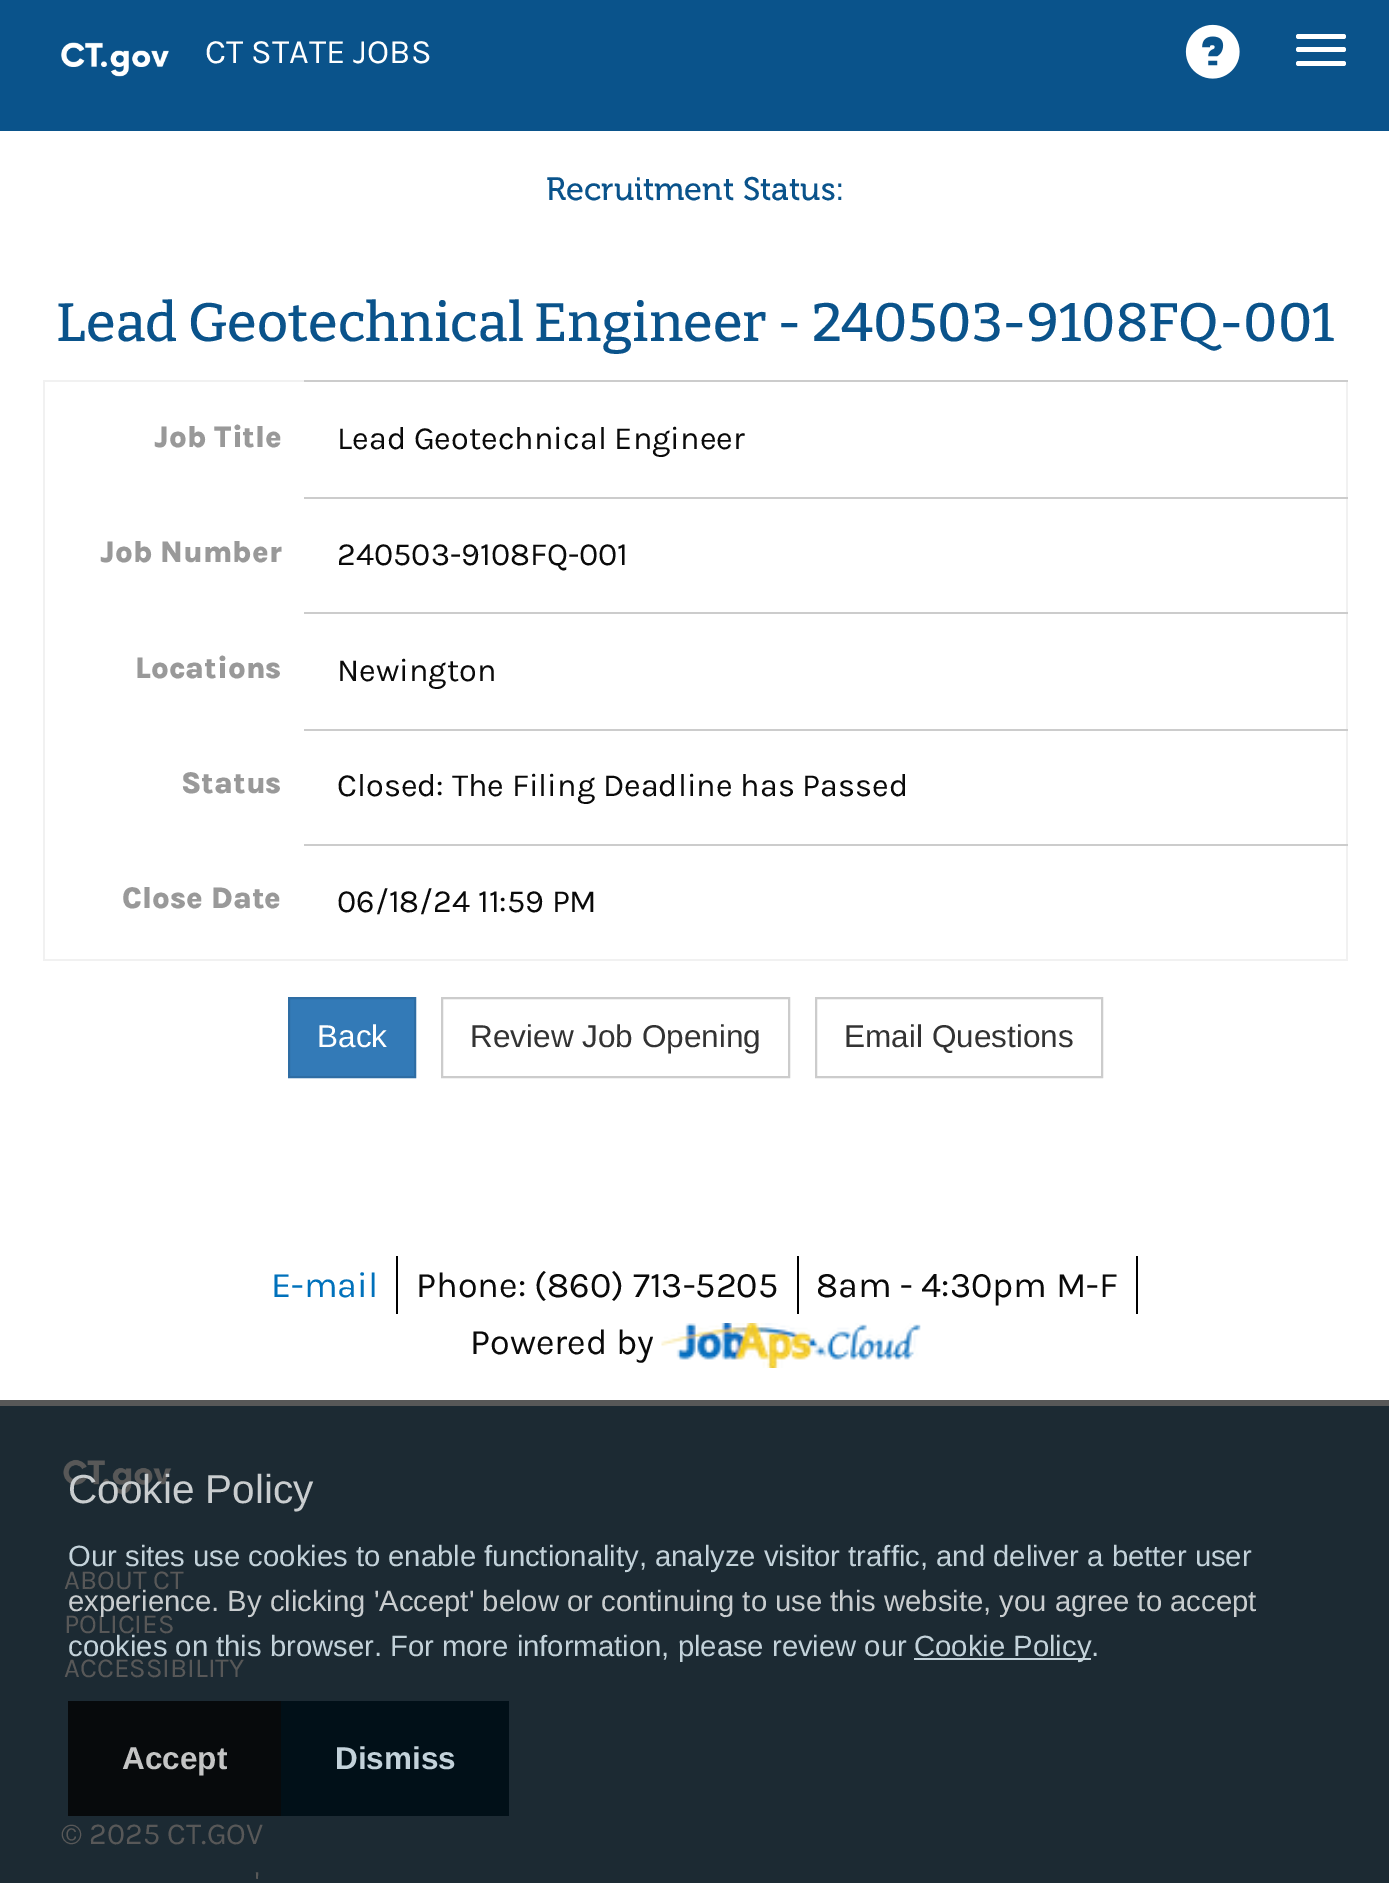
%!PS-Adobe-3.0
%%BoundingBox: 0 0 1389 1883
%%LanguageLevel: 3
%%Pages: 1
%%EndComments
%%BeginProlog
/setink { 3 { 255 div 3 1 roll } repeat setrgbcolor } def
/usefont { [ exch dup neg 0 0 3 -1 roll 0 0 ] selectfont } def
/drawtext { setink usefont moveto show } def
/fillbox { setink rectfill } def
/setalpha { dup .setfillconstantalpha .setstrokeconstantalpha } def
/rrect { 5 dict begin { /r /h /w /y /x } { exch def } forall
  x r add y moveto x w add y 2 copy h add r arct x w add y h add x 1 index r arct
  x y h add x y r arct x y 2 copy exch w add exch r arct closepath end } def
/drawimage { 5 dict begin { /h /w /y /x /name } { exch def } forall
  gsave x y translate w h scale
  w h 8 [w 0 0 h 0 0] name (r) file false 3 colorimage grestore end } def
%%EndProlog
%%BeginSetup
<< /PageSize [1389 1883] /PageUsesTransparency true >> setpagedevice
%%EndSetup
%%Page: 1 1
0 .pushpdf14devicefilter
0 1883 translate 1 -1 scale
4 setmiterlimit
0 0 1389 1883 255 255 255 fillbox
0 1400 1389 6 88 88 88 fillbox
0 0 1389 131 10 83 139 fillbox
(assets/img1.rgb) 61 42 108 35 drawimage
(CT STATE JOBS) 205 63 /Karla-Regular 34.25 255 255 255 drawtext
(assets/img2.rgb) 1185 24 55 55 drawimage
1296 34 50 5 2.5 rrect fill
1296 47 50 5 2.5 rrect fill
1296 61 50 5 2.5 rrect fill
(Recruitment Status:) 546 200 /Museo-Regular 32.4 10 83 139 drawtext
(Lead Geotechnical Engineer - 240503-9108FQ-001) 56 341 /Bitter-Thin 54 10 83 139 drawtext
43 380 261 2 241 241 241 fillbox
1346 380 2 581 241 241 241 fillbox
43 959 1305 2 241 241 241 fillbox
43 380 2 581 241 241 241 fillbox
(Job Title) 154 447 /Karla-ExtraBold 30.5 153 153 153 drawtext
304 380 1044 2 204 204 204 fillbox
(Lead Geotechnical Engineer) 337 449 /Karla-Regular 32.4 10 10 10 drawtext
(Job Number) 100 562 /Karla-ExtraBold 30.5 153 153 153 drawtext
304 497 1044 2 204 204 204 fillbox
(240503-9108FQ-001) 337 565 /Karla-Regular 32.4 10 10 10 drawtext
(Locations) 135 678 /Karla-ExtraBold 30.5 153 153 153 drawtext
304 612 1044 2 204 204 204 fillbox
(Newington) 337 681 /Karla-Regular 32.4 10 10 10 drawtext
(Status) 181 793 /Karla-ExtraBold 30.5 153 153 153 drawtext
304 729 1044 2 204 204 204 fillbox
(Closed: The Filing Deadline has Passed) 337 796 /Karla-Regular 32.4 10 10 10 drawtext
(Close Date) 122 908 /Karla-ExtraBold 30.5 153 153 153 drawtext
304 844 1044 2 204 204 204 fillbox
(06/18/24 11:59 PM) 337 912 /Karla-Regular 32.4 10 10 10 drawtext
51 122 183 setink
289 998 moveto 415 998 lineto 415 1077 lineto 289 1077 lineto closepath gsave fill grestore
46 109 164 setink
2 setlinewidth
stroke
(Back) 317 1047 /LiberationSans-Regular 31.5 255 255 255 drawtext
204 204 204 setink
442 998 347 79 rectstroke
(Review Job Opening) 470 1047 /LiberationSans-Regular 31.5 51 51 51 drawtext
204 204 204 setink
816 998 286 79 rectstroke
(Email Questions) 844 1047 /LiberationSans-Regular 31.5 51 51 51 drawtext
396 1256 2 58 0 0 0 fillbox
(E-mail) 271 1297 /Karla-Regular 36 0 113 187 drawtext
797 1256 2 58 0 0 0 fillbox
(Phone: \(860\) 713-5205) 416 1297 /Karla-Regular 36 10 10 10 drawtext
1136 1256 2 58 0 0 0 fillbox
(8am - 4:30pm M-F) 816 1297 /Karla-Regular 36 10 10 10 drawtext
(Powered by) 470 1354 /Karla-Regular 36 10 10 10 drawtext
(assets/img3.rgb) 661 1323 260 45 drawimage
0 1406 1389 477 28 42 51 fillbox
(assets/img4.rgb) 63 1459 109 35 drawimage
(ABOUT CT) 64 1589 /Karla-Regular 27.5 88 88 88 drawtext
(POLICIES) 64 1633 /Karla-Regular 27.5 88 88 88 drawtext
(ACCESSIBILITY) 64 1677 /Karla-Regular 27.5 88 88 88 drawtext
(© 2025 CT.GOV) 61 1844 /Karla-Regular 30.5 88 88 88 drawtext
(') 255 1893 /Karla-Regular 30.5 88 88 88 drawtext
(Cookie Policy) 68 1503 /LiberationSans-Regular 40.5 201 205 207 drawtext
(Our sites use cookies to enable functionality, analyze visitor traffic, and deliver a better user) 68 1566 /LiberationSans-Regular 29.25 195 210 218 drawtext
(experience. By clicking 'Accept' below or continuing to use this website, you agree to accept) 68 1611 /LiberationSans-Regular 29.25 201 205 207 drawtext
(cookies on this browser. For more information, please review our) 68 1656 /LiberationSans-Regular 29.25 195 210 218 drawtext
914 1658 177 2 195 210 218 fillbox
(Cookie Policy.) 914 1656 /LiberationSans-Regular 29.25 195 210 218 drawtext
0.76 setalpha
68 1701 213 115 0 0 0 fillbox
1 setalpha
(Accept) 122 1769 /LiberationSans-Bold 31.5 196 197 197 drawtext
281 1701 228 115 1 16 24 fillbox
(Dismiss) 335 1769 /LiberationSans-Bold 31.5 195 210 218 drawtext
.poppdf14devicefilter showpage
%%EOF
